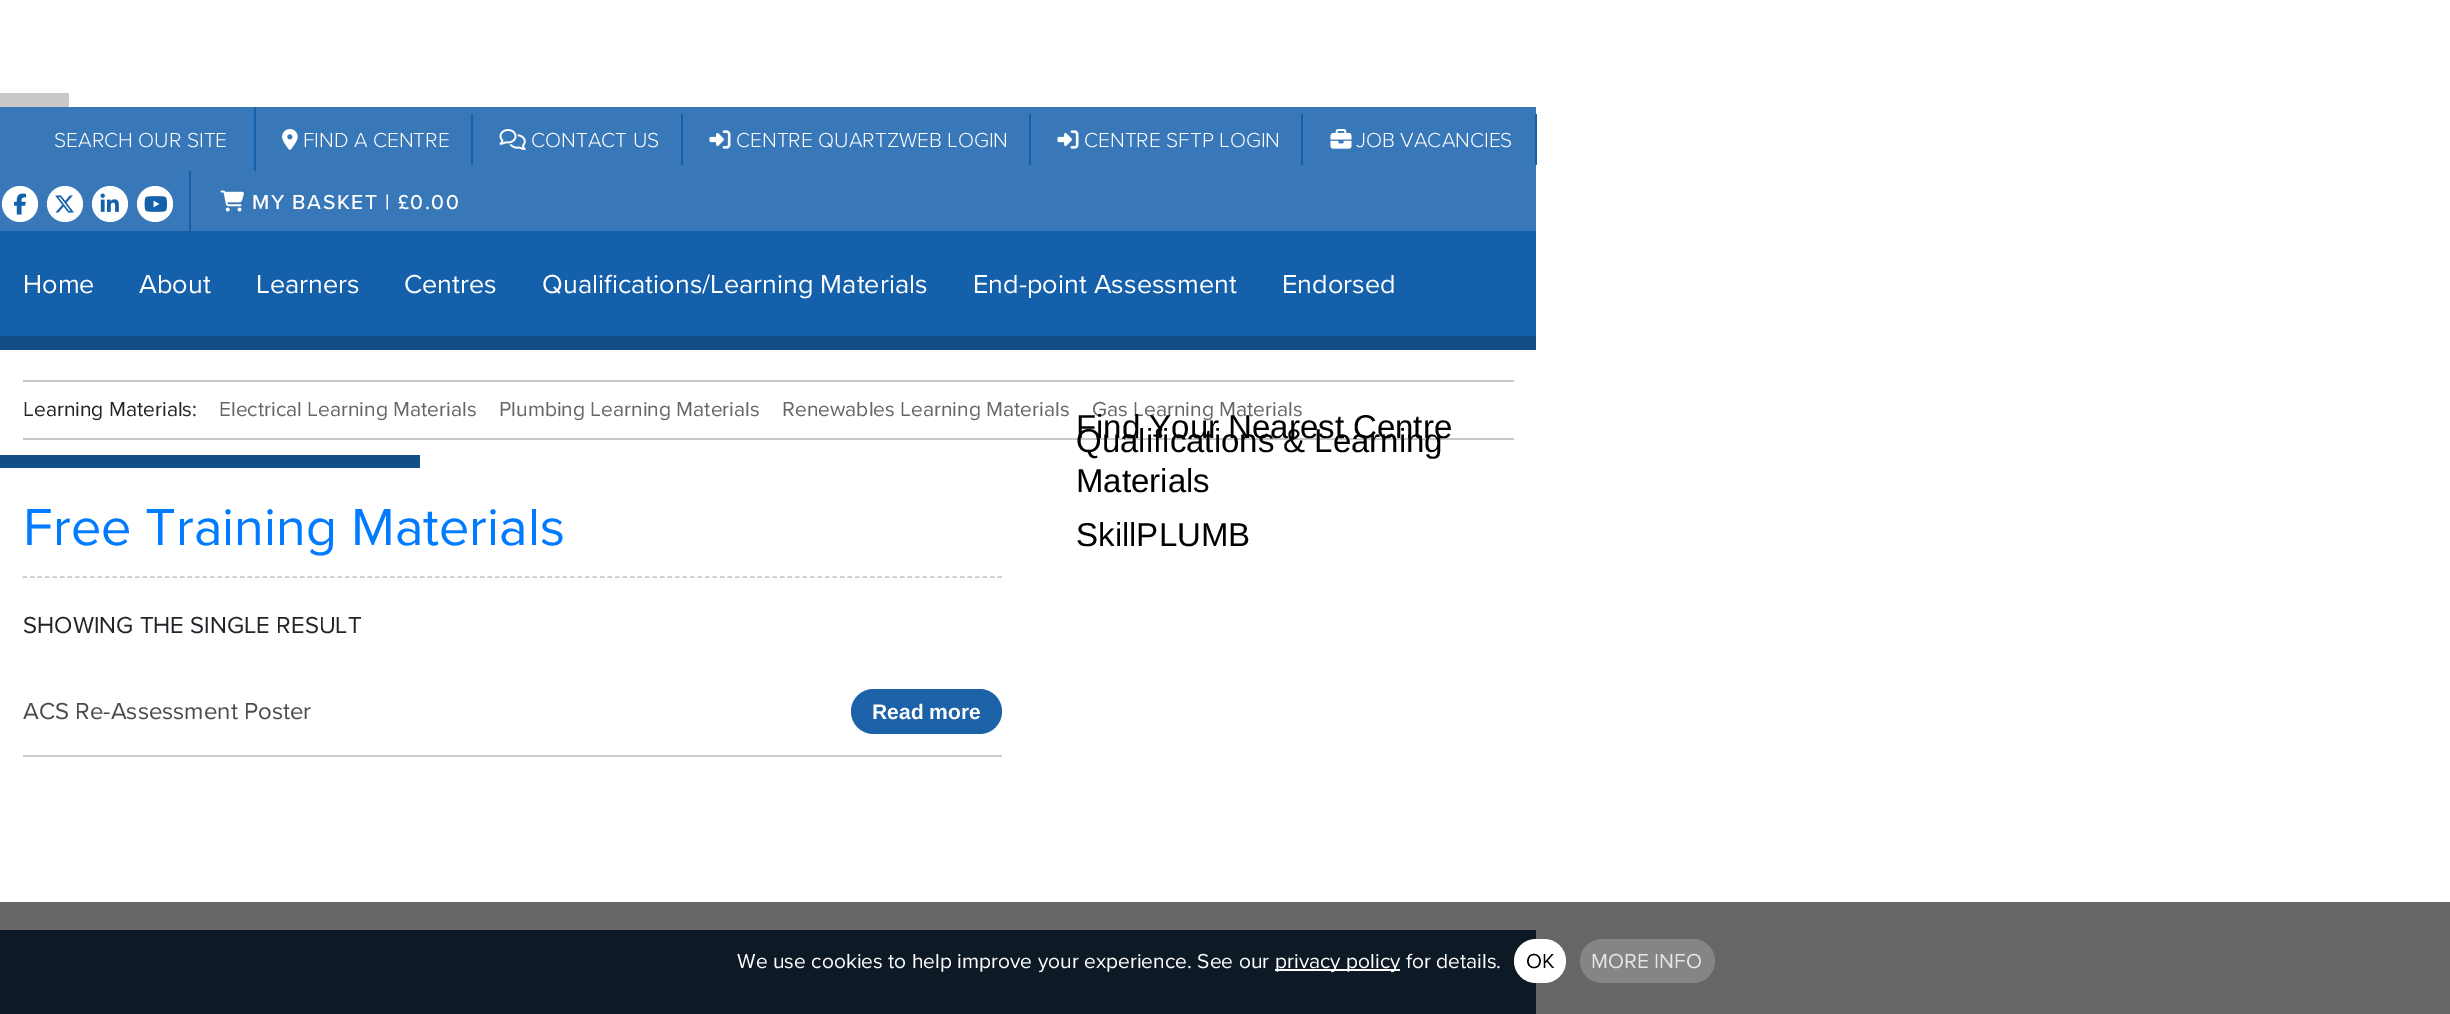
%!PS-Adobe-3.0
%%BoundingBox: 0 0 2450 1014
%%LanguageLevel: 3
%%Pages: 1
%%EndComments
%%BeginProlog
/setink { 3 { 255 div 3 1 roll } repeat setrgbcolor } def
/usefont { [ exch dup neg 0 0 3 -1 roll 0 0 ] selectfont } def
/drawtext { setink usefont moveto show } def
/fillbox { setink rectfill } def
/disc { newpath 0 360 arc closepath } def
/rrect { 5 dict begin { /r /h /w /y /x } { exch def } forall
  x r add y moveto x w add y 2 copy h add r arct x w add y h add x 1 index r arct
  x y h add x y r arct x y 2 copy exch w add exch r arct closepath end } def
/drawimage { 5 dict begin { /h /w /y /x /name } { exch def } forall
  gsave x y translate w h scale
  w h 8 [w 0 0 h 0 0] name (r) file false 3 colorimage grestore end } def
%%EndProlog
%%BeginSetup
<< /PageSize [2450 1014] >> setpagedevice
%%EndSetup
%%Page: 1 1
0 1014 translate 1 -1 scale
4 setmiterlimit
0 0 2450 1014 255 255 255 fillbox
0 902 2450 112 102 102 102 fillbox
0 93 69 14 201 201 201 fillbox
0 231 1536 105 21 96 171 fillbox
0 107 1536 124 56 120 184 fillbox
254 107 2 64 21 96 171 fillbox
(SEARCH OUR SITE) 54 147 /ProximaNova-Light 21 255 255 255 drawtext
471 114 2 51 21 96 171 fillbox
(assets/img1.rgb) 282 129 16 21 drawimage
(FIND A CENTRE) 303 147 /ProximaNova-Light 21 255 255 255 drawtext
681 114 2 51 21 96 171 fillbox
(assets/img2.rgb) 499 129 27 21 drawimage
(CONTACT US) 531 147 /ProximaNova-Light 21 255 255 255 drawtext
1029 114 2 51 21 96 171 fillbox
(assets/img3.rgb) 709 130 22 19 drawimage
(CENTRE QUARTZWEB LOGIN) 736 147 /ProximaNova-Light 21 255 255 255 drawtext
1301 114 2 51 21 96 171 fillbox
(assets/img3.rgb) 1057 130 22 19 drawimage
(CENTRE SFTP LOGIN) 1084 147 /ProximaNova-Light 21 255 255 255 drawtext
1535 114 2 51 21 96 171 fillbox
(assets/img4.rgb) 1330 129 22 20 drawimage
(JOB VACANCIES) 1356 147 /ProximaNova-Light 21 255 255 255 drawtext
20 204 18 disc fill
(assets/img5.rgb) 14 193 13 22 drawimage
65 204 18 disc fill
(assets/img6.rgb) 55 195 19 18 drawimage
110 204 18 disc fill
(assets/img7.rgb) 100 193 19 19 drawimage
155 204 18 disc fill
(assets/img8.rgb) 144 196 23 16 drawimage
189 171 2 60 21 96 171 fillbox
(assets/img9.rgb) 220 190 24 22 drawimage
/ProximaNova-Medium 21 usefont
255 255 255 setink
252 209 moveto 1.5 0 (MY BASKET | £0.00) ashow
0 336 1536 14 19 78 136 fillbox
(Home) 23 293 /ProximaNova-Regular 27 255 255 255 drawtext
(About) 139 293 /ProximaNova-Regular 27 255 255 255 drawtext
(Learners) 256 293 /ProximaNova-Regular 27 255 255 255 drawtext
(Centres) 404 293 /ProximaNova-Regular 27 255 255 255 drawtext
(Qualifications/Learning Materials) 542 293 /ProximaNova-Regular 27 255 255 255 drawtext
(End-point Assessment) 973 293 /ProximaNova-Regular 27 255 255 255 drawtext
(Endorsed) 1282 293 /ProximaNova-Regular 27 255 255 255 drawtext
0 455 420 13 19 78 136 fillbox
23 380 1491 2 201 201 201 fillbox
23 438 1491 2 201 201 201 fillbox
(Learning Materials:) 23 416 /ProximaNova-Regular 21 33 37 41 drawtext
(Electrical Learning Materials) 219 416 /ProximaNova-Regular 21 102 102 102 drawtext
(Plumbing Learning Materials) 499 416 /ProximaNova-Regular 21 102 102 102 drawtext
(Renewables Learning Materials) 782 416 /ProximaNova-Regular 21 102 102 102 drawtext
(Gas Learning Materials) 1092 416 /ProximaNova-Regular 21 102 102 102 drawtext
(Find Your Nearest Centre) 1076 438 /LiberationSans-Regular 33 0 0 0 drawtext
(Qualifications & Learning) 1076 452 /LiberationSans-Regular 33 0 0 0 drawtext
(Materials) 1076 492 /LiberationSans-Regular 33 0 0 0 drawtext
(SkillPLUMB) 1076 546 /LiberationSans-Regular 33 0 0 0 drawtext
201 201 201 setink
1.5 setlinewidth
[4.5 3] 0 setdash
22.5 577 moveto 1002 577 lineto stroke
(Free Training Materials) 23 545 /ProximaNova-Regular 54 0 123 255 drawtext
(SHOWING THE SINGLE RESULT) 23 633 /ProximaNova-Regular 24 33 37 41 drawtext
23 755 979 2 204 204 204 fillbox
(ACS Re-Assessment Poster) 23 719 /ProximaNova-Regular 24 74 74 74 drawtext
28 98 169 setink
851 689 151 45 22.5 rrect fill
(Read more) 872 719 /LiberationSans-Bold 21 255 255 255 drawtext
0 930 1536 84 13 25 37 fillbox
(We use cookies to help improve your experience. See our) 737 968 /ProximaNova-Regular 21 255 255 255 drawtext
1275 969 125 2 255 255 255 fillbox
(privacy policy for details.) 1275 968 /ProximaNova-Regular 21 255 255 255 drawtext
1514 939 52 44 22 rrect fill
(OK) 1526 968 /ProximaNova-Regular 21 0 0 0 drawtext
133 133 133 setink
1580 939 135 44 22 rrect fill
(MORE INFO) 1591 968 /ProximaNova-Regular 21 231 231 231 drawtext
showpage
%%EOF
